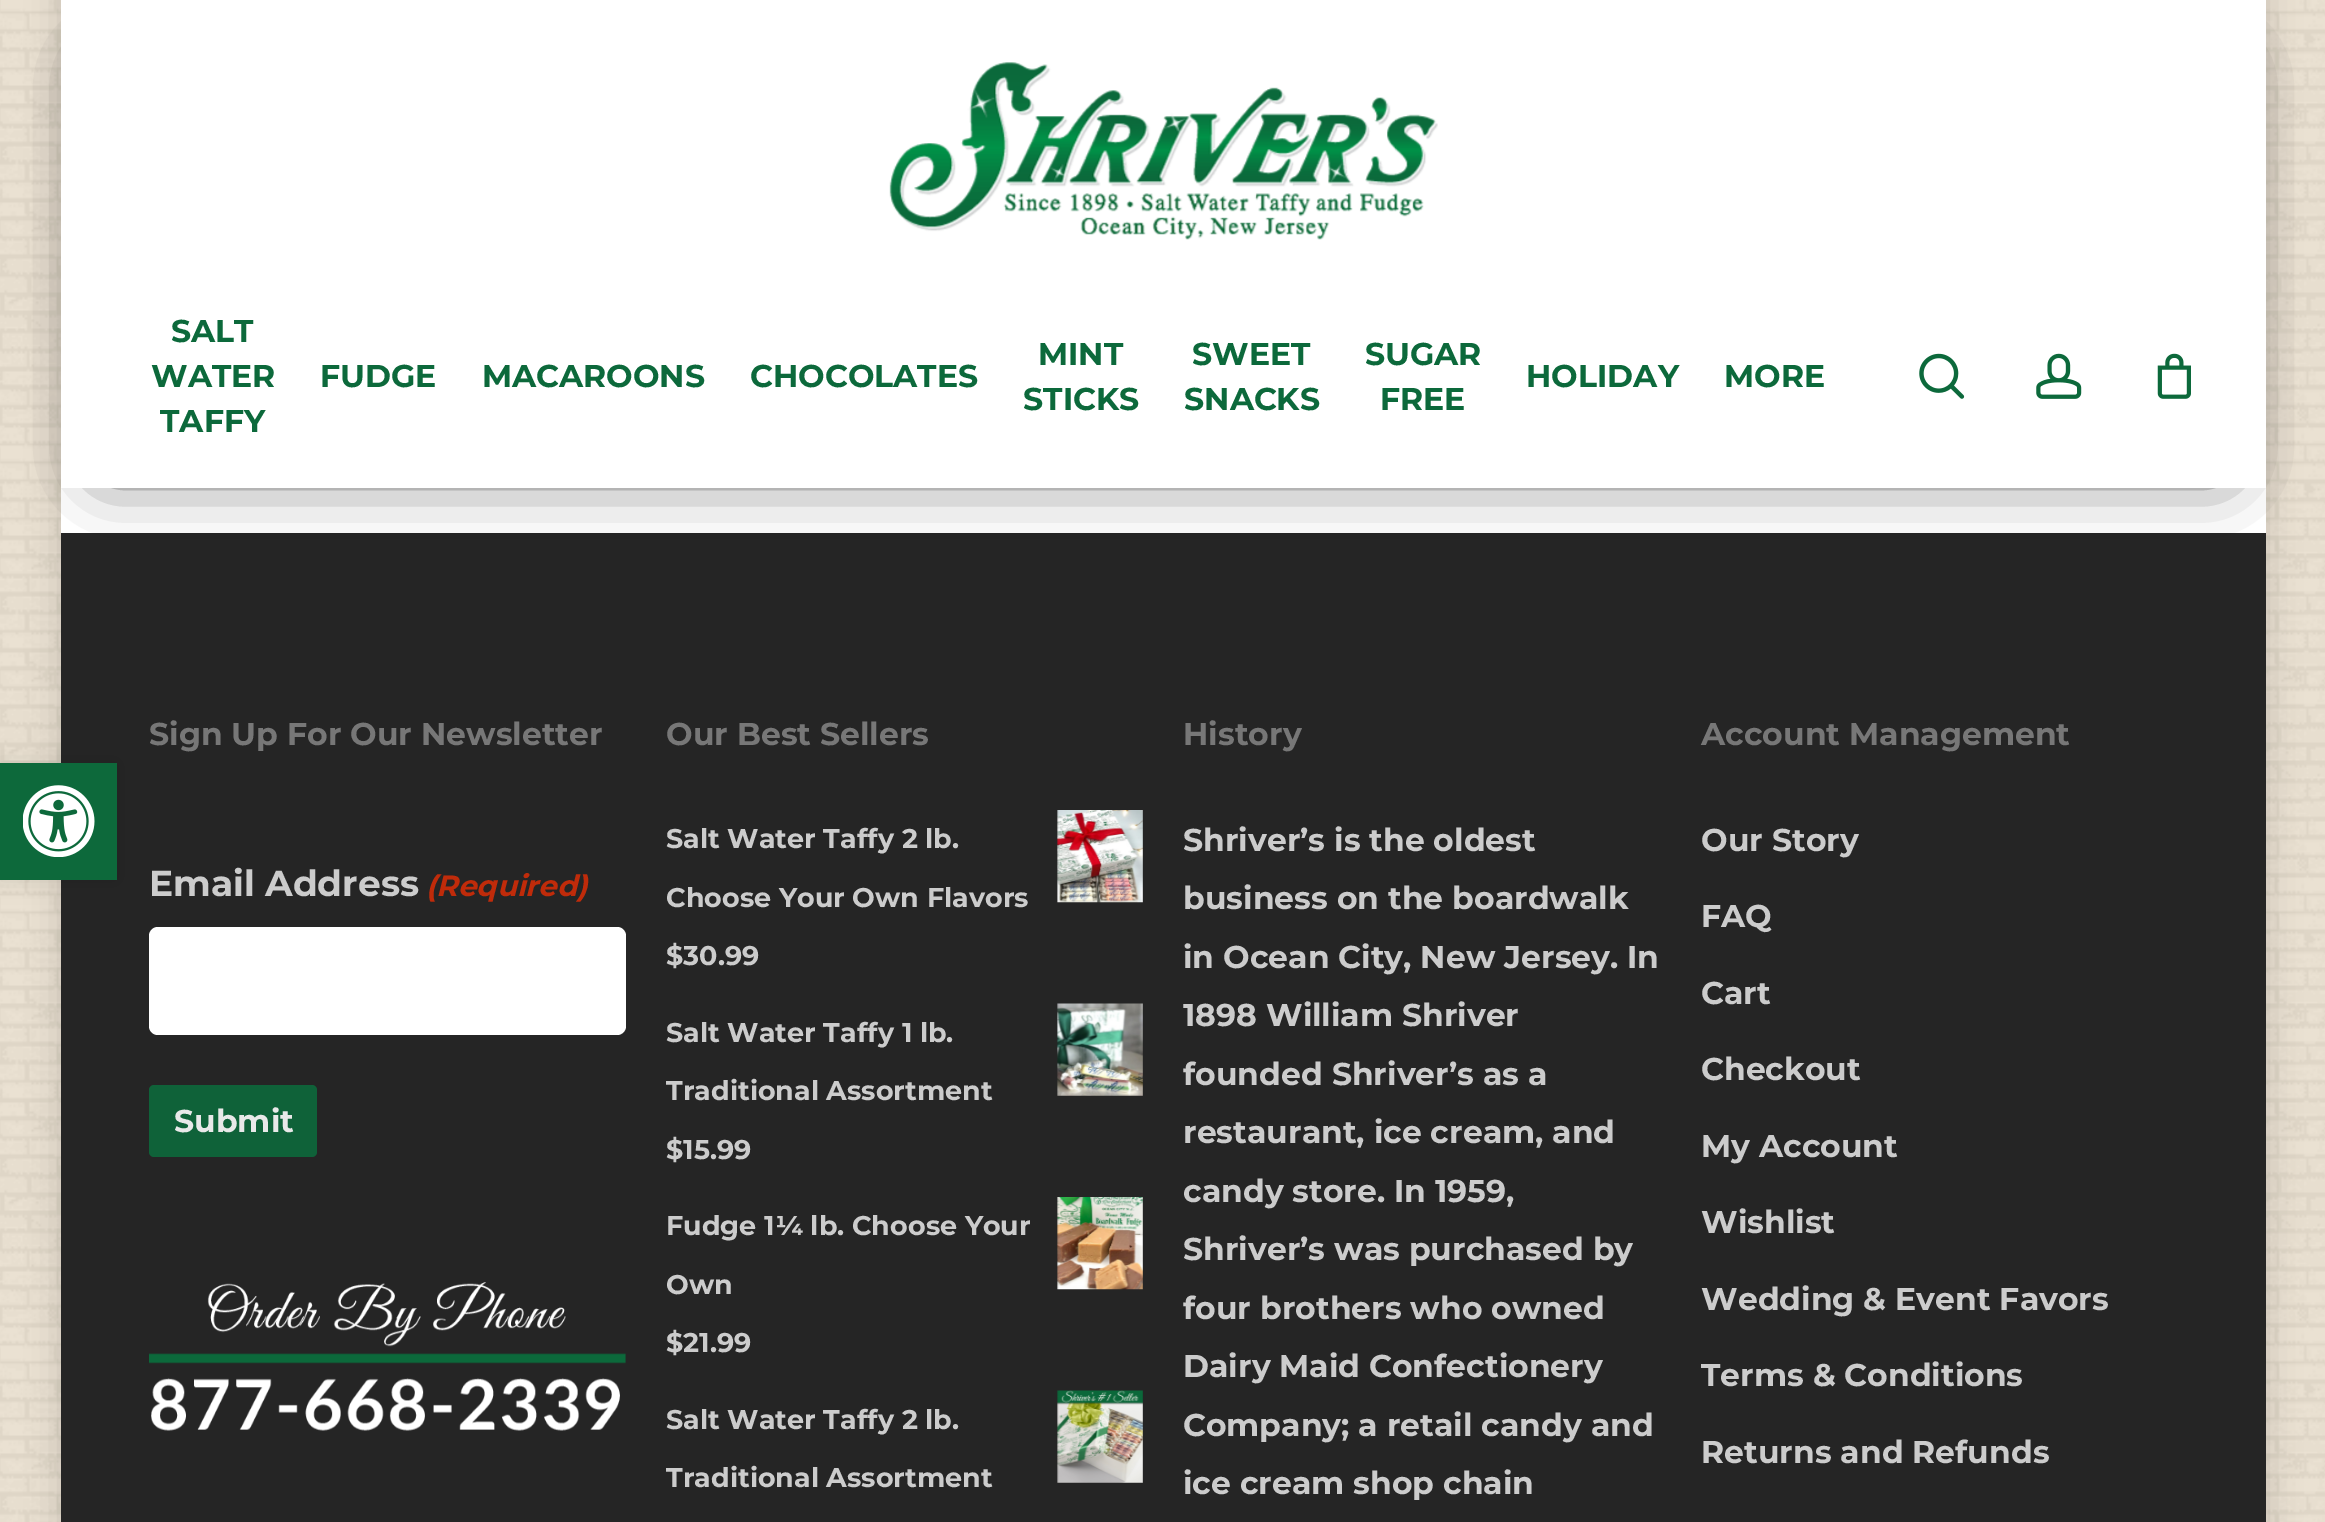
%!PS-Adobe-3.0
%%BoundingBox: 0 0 2325 1522
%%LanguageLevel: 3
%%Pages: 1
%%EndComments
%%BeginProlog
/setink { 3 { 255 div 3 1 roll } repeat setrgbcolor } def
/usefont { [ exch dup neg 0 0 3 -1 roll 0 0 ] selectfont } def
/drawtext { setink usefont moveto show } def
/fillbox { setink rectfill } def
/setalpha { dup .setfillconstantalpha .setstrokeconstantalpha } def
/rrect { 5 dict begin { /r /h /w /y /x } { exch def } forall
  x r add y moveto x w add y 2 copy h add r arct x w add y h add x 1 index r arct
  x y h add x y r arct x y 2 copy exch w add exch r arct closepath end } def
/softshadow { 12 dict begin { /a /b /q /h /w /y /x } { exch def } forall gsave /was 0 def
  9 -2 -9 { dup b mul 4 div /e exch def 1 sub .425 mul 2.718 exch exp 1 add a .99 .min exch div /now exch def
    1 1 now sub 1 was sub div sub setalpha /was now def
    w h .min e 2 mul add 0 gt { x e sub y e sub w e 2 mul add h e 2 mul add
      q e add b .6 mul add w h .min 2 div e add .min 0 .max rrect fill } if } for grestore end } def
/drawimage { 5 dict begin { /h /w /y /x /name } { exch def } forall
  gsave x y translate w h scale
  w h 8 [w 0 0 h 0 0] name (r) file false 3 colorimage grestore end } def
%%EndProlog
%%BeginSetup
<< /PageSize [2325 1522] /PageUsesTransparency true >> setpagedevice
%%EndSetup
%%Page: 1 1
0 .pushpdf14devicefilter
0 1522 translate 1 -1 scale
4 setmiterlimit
0 0 2325 1522 255 255 255 fillbox
(assets/img1.rgb) 0 0 2325 1522 drawimage
0 0 0 setink
61 -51 2205 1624 0 17 0.15 softshadow
61 533 2205 989 37 37 37 fillbox
0 0 0 setink
0 763 117 117 0 11 0.1 softshadow
0 763 117 117 13 105 59 fillbox
(assets/img2.rgb) 23 785 72 72 drawimage
61 0 2205 533 255 255 255 fillbox
gsave
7 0 moveto 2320 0 lineto 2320 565 lineto 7 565 lineto closepath 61 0 moveto 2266 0 lineto 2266 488 lineto 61 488 lineto closepath eoclip newpath
0 0 0 setink
106 68 2115 398 0 32.5 1 softshadow
grestore
(assets/img3.rgb) 889 62 549 178 drawimage
(SALT) 171 342 /Montserrat-Thin 31.5 12 105 59 drawtext
(WATER) 151 387 /Montserrat-Thin 31.5 12 105 59 drawtext
(TAFFY) 160 432 /Montserrat-Thin 31.5 12 105 59 drawtext
(FUDGE) 320 387 /Montserrat-Thin 31.5 12 105 59 drawtext
(MACAROONS) 482 387 /Montserrat-Thin 31.5 12 105 59 drawtext
(CHOCOLATES) 750 387 /Montserrat-Thin 31.5 12 105 59 drawtext
(MINT) 1038 365 /Montserrat-Thin 31.5 12 105 59 drawtext
(STICKS) 1023 410 /Montserrat-Thin 31.5 12 105 59 drawtext
(SWEET) 1192 365 /Montserrat-Thin 31.5 12 105 59 drawtext
(SNACKS) 1184 410 /Montserrat-Thin 31.5 12 105 59 drawtext
(SUGAR) 1365 365 /Montserrat-Thin 31.5 12 105 59 drawtext
(FREE) 1380 410 /Montserrat-Thin 31.5 12 105 59 drawtext
(HOLIDAY) 1526 387 /Montserrat-Thin 31.5 12 105 59 drawtext
(MORE) 1724 387 /Montserrat-Thin 31.5 12 105 59 drawtext
(assets/img4.rgb) 1919 353 46 46 drawimage
(assets/img5.rgb) 2036 353 46 46 drawimage
(assets/img6.rgb) 2157 353 34 46 drawimage
(Sign Up For Our Newsletter) 149 745 /Montserrat-Thin 31.5 119 119 119 drawtext
(Email Address) 149 896 /Montserrat-Thin 36 204 204 204 drawtext
(\(Required\)) 426 896 /Montserrat-ThinItalic 29.25 192 43 10 drawtext
255 255 255 setink
149 927 477 108 9 rrect fill
15 98 57 setink
149 1085 168 72 5 rrect fill
(Submit) 174 1132 /Montserrat-Thin 31.5 233 233 233 drawtext
(assets/img7.rgb) 149 1282 477 149 drawimage
(Our Best Sellers) 666 745 /Montserrat-Thin 31.5 119 119 119 drawtext
(Salt Water Taffy 2 lb.) 666 848 /Montserrat-Thin 27 204 204 204 drawtext
(assets/img8.rgb) 1057 810 86 93 drawimage
(Choose Your Own Flavors) 666 907 /Montserrat-Thin 27 204 204 204 drawtext
($30.99) 666 965 /Montserrat-Thin 27 204 204 204 drawtext
(Salt Water Taffy 1 lb.) 666 1042 /Montserrat-Thin 27 204 204 204 drawtext
(assets/img9.rgb) 1057 1003 86 93 drawimage
(Traditional Assortment) 666 1100 /Montserrat-Thin 27 204 204 204 drawtext
($15.99) 666 1159 /Montserrat-Thin 27 204 204 204 drawtext
(Fudge 1¼ lb. Choose Your) 666 1235 /Montserrat-Thin 27 204 204 204 drawtext
(assets/img10.rgb) 1057 1197 86 93 drawimage
(Own) 666 1294 /Montserrat-Thin 27 204 204 204 drawtext
($21.99) 666 1352 /Montserrat-Thin 27 204 204 204 drawtext
(Salt Water Taffy 2 lb.) 666 1429 /Montserrat-Thin 27 204 204 204 drawtext
(assets/img11.rgb) 1057 1390 86 93 drawimage
(Traditional Assortment) 666 1487 /Montserrat-Thin 27 204 204 204 drawtext
(History) 1183 745 /Montserrat-Thin 31.5 119 119 119 drawtext
(Shriver’s is the oldest) 1183 851 /Montserrat-Thin 31.5 204 204 204 drawtext
(business on the boardwalk) 1183 909 /Montserrat-Thin 31.5 204 204 204 drawtext
(in Ocean City, New Jersey. In) 1183 968 /Montserrat-Thin 31.5 204 204 204 drawtext
(1898 William Shriver) 1183 1026 /Montserrat-Thin 31.5 204 204 204 drawtext
(founded Shriver’s as a) 1183 1085 /Montserrat-Thin 31.5 204 204 204 drawtext
(restaurant, ice cream, and) 1183 1143 /Montserrat-Thin 31.5 204 204 204 drawtext
(candy store. In 1959,) 1183 1202 /Montserrat-Thin 31.5 204 204 204 drawtext
(Shriver’s was purchased by) 1183 1260 /Montserrat-Thin 31.5 204 204 204 drawtext
(four brothers who owned) 1183 1319 /Montserrat-Thin 31.5 204 204 204 drawtext
(Dairy Maid Confectionery) 1183 1377 /Montserrat-Thin 31.5 204 204 204 drawtext
(Company; a retail candy and) 1183 1436 /Montserrat-Thin 31.5 204 204 204 drawtext
(ice cream shop chain) 1183 1494 /Montserrat-Thin 31.5 204 204 204 drawtext
(Account Management) 1701 745 /Montserrat-Thin 31.5 119 119 119 drawtext
(Our Story) 1701 851 /Montserrat-Thin 31.5 204 204 204 drawtext
(FAQ) 1701 927 /Montserrat-Thin 31.5 204 204 204 drawtext
(Cart) 1701 1004 /Montserrat-Thin 31.5 204 204 204 drawtext
(Checkout) 1701 1080 /Montserrat-Thin 31.5 204 204 204 drawtext
(My Account) 1701 1157 /Montserrat-Thin 31.5 204 204 204 drawtext
(Wishlist) 1701 1233 /Montserrat-Thin 31.5 204 204 204 drawtext
(Wedding & Event Favors) 1701 1310 /Montserrat-Thin 31.5 204 204 204 drawtext
(Terms & Conditions) 1701 1386 /Montserrat-Thin 31.5 204 204 204 drawtext
(Returns and Refunds) 1701 1463 /Montserrat-Thin 31.5 204 204 204 drawtext
.poppdf14devicefilter showpage
%%EOF
